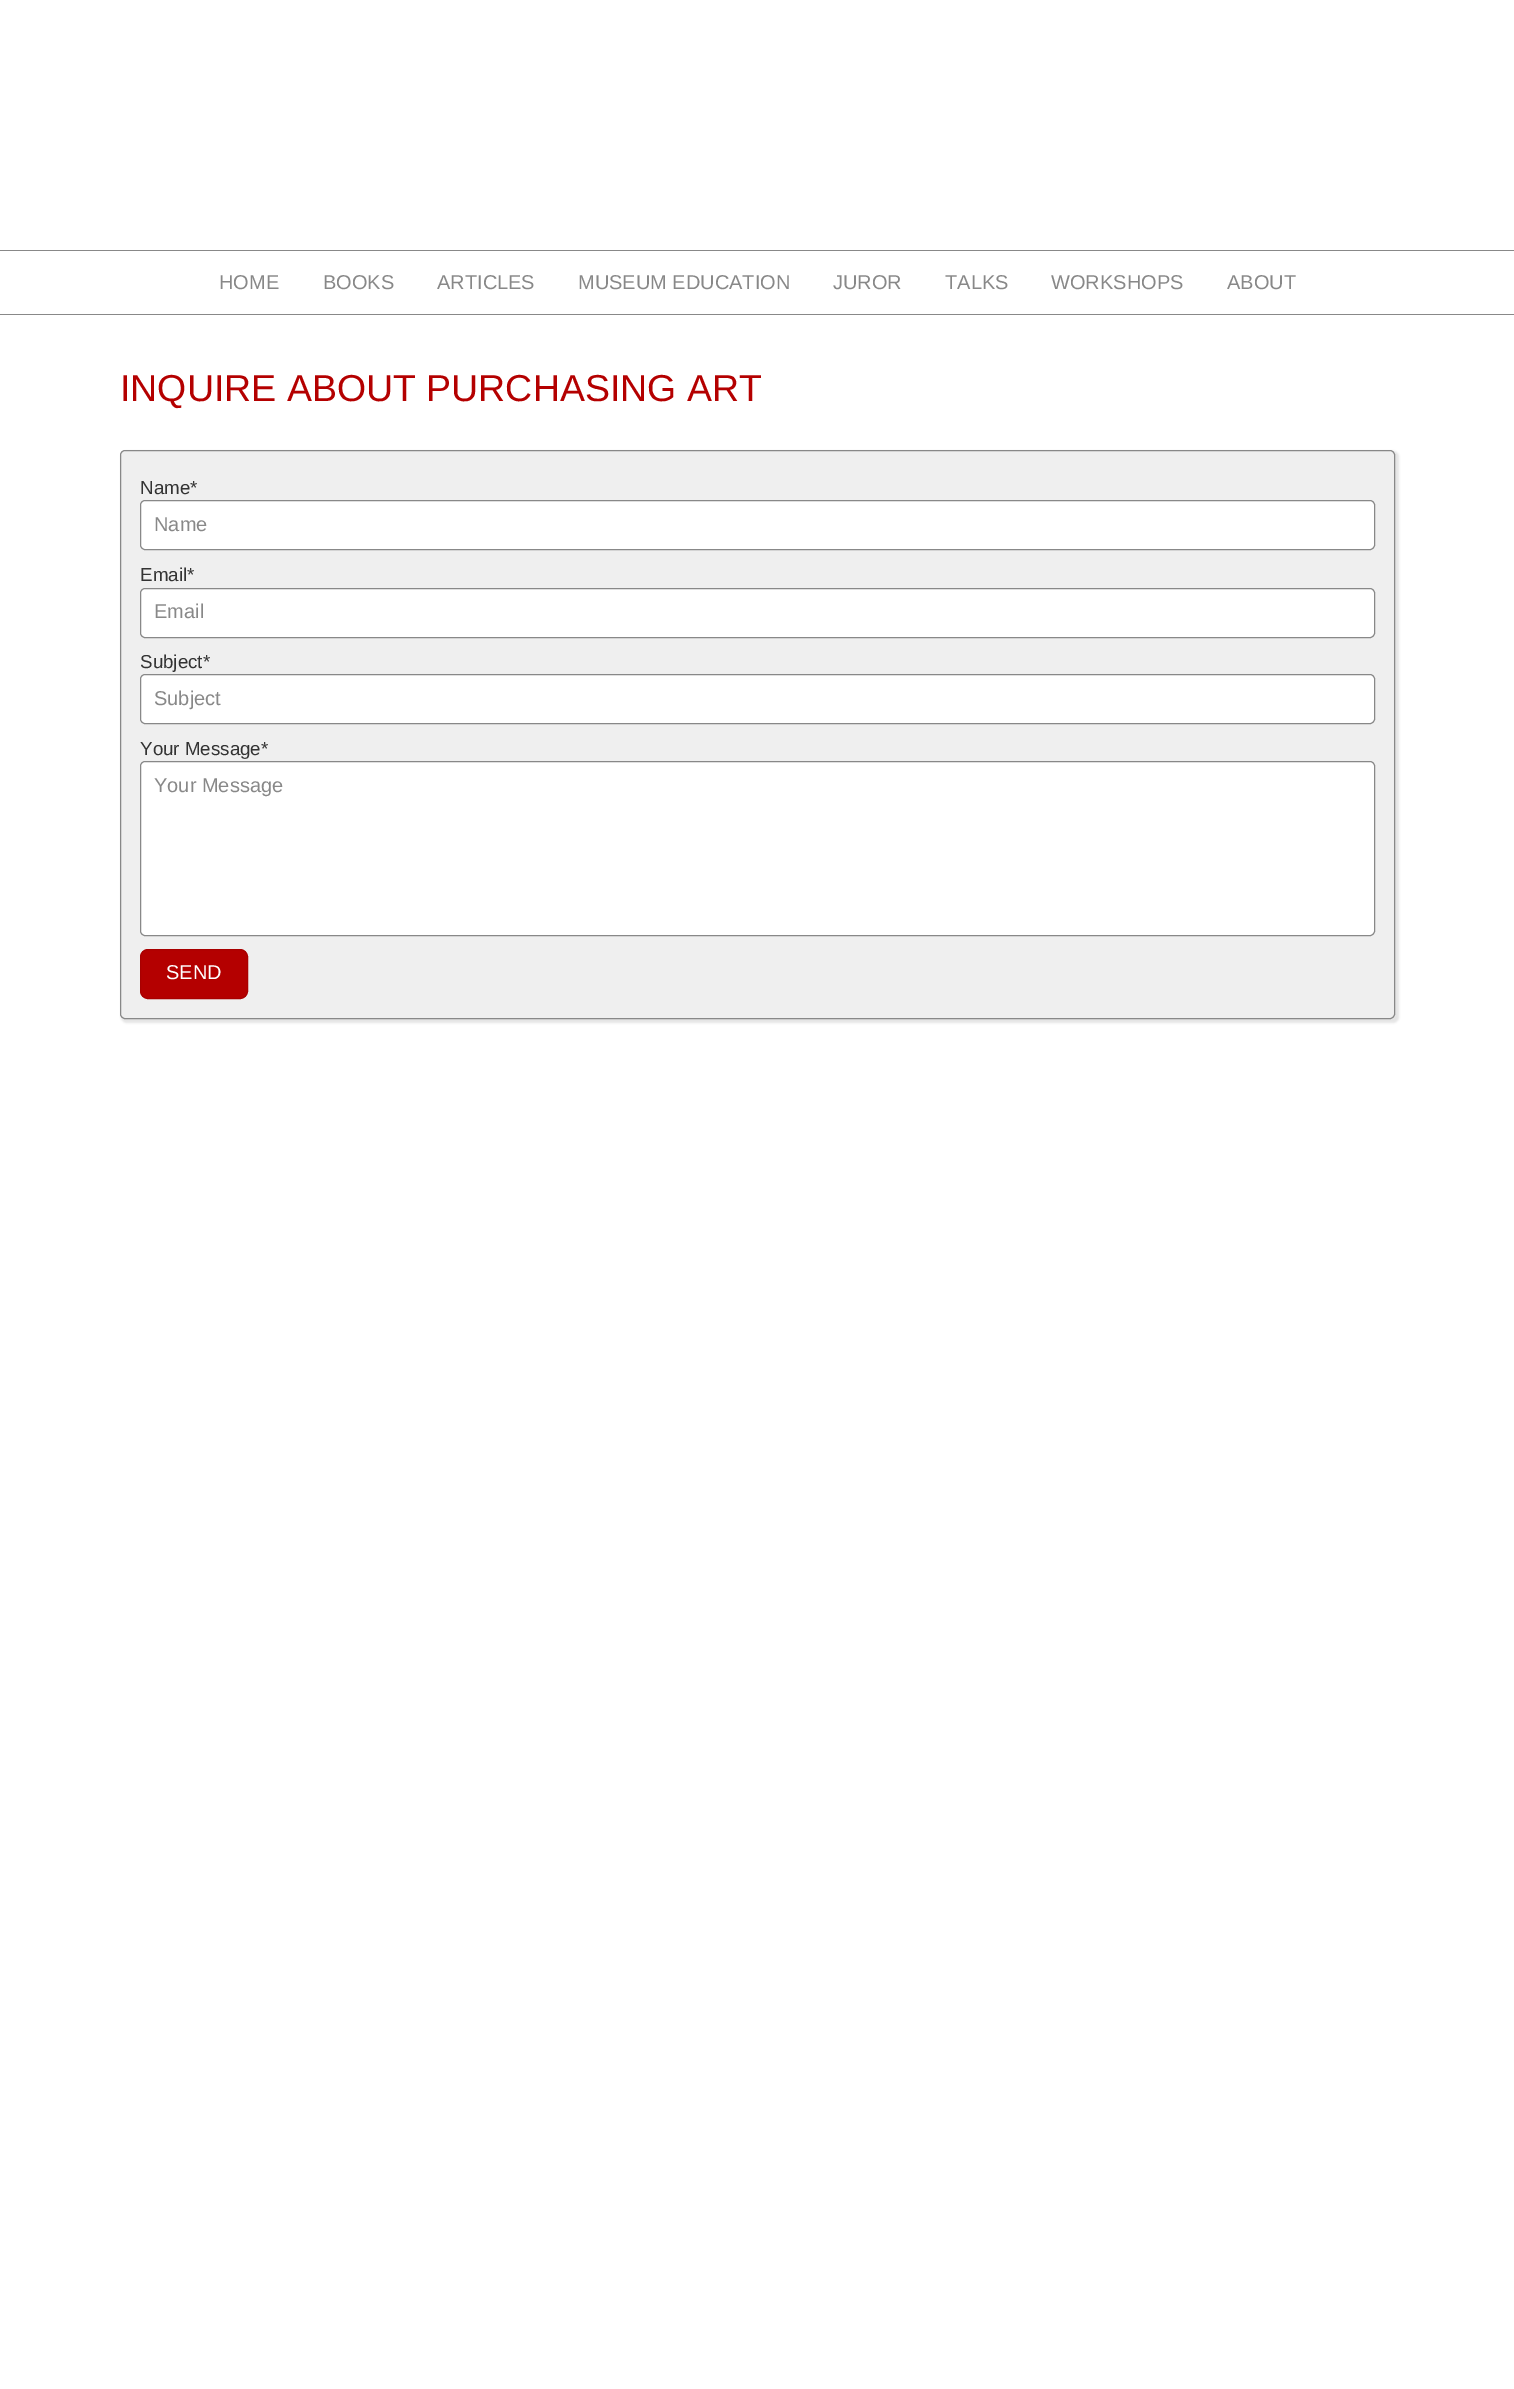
%!PS-Adobe-3.0
%%BoundingBox: 0 0 1514 2389
%%LanguageLevel: 3
%%Pages: 1
%%EndComments
%%BeginProlog
/setink { 3 { 255 div 3 1 roll } repeat setrgbcolor } def
/usefont { [ exch dup neg 0 0 3 -1 roll 0 0 ] selectfont } def
/drawtext { setink usefont moveto show } def
/fillbox { setink rectfill } def
/setalpha { dup .setfillconstantalpha .setstrokeconstantalpha } def
/rrect { 5 dict begin { /r /h /w /y /x } { exch def } forall
  x r add y moveto x w add y 2 copy h add r arct x w add y h add x 1 index r arct
  x y h add x y r arct x y 2 copy exch w add exch r arct closepath end } def
/softshadow { 12 dict begin { /a /b /q /h /w /y /x } { exch def } forall gsave /was 0 def
  9 -2 -9 { dup b mul 4 div /e exch def 1 sub .425 mul 2.718 exch exp 1 add a .99 .min exch div /now exch def
    1 1 now sub 1 was sub div sub setalpha /was now def
    w h .min e 2 mul add 0 gt { x e sub y e sub w e 2 mul add h e 2 mul add
      q e add b .6 mul add w h .min 2 div e add .min 0 .max rrect fill } if } for grestore end } def
%%EndProlog
%%BeginSetup
<< /PageSize [1514 2389] /PageUsesTransparency true >> setpagedevice
%%EndSetup
%%Page: 1 1
0 .pushpdf14devicefilter
0 2389 translate 1 -1 scale
4 setmiterlimit
0 0 1514 2389 255 255 255 fillbox
0 250 1514 1 136 136 136 fillbox
0 314 1514 1 136 136 136 fillbox
(HOME) 219 289 /LiberationSans-Regular 20 136 136 136 drawtext
(BOOKS) 323 289 /LiberationSans-Regular 20 136 136 136 drawtext
(ARTICLES) 437 289 /LiberationSans-Regular 20 136 136 136 drawtext
(MUSEUM EDUCATION) 578 289 /LiberationSans-Regular 20 136 136 136 drawtext
(JUROR) 833 289 /LiberationSans-Regular 20 136 136 136 drawtext
(TALKS) 945 289 /LiberationSans-Regular 20 136 136 136 drawtext
(WORKSHOPS) 1051 289 /LiberationSans-Regular 20 136 136 136 drawtext
(ABOUT) 1227 289 /LiberationSans-Regular 20 136 136 136 drawtext
(INQUIRE ABOUT PURCHASING ART) 120 401 /LiberationSans-Regular 37.5 180 0 0 drawtext
0 0 0 setink
121 451 1278 572 6 1 0.1 softshadow
239 239 239 setink
120.5 450.5 1274 568 4.5 rrect gsave fill grestore
136 136 136 setink
stroke
(Name*) 140 494 /LiberationSans-Regular 18.75 51 51 51 drawtext
255 255 255 setink
140.5 500.5 1234 49 4.5 rrect gsave fill grestore
136 136 136 setink
stroke
(Name) 154 531 /LiberationSans-Regular 20 136 136 136 drawtext
(Email*) 140 581 /LiberationSans-Regular 18.75 51 51 51 drawtext
255 255 255 setink
140.5 588.5 1234 49 4.5 rrect gsave fill grestore
136 136 136 setink
stroke
(Email) 154 618 /LiberationSans-Regular 20 136 136 136 drawtext
(Subject*) 140 668 /LiberationSans-Regular 18.75 51 51 51 drawtext
255 255 255 setink
140.5 674.5 1234 49 4.5 rrect gsave fill grestore
136 136 136 setink
stroke
(Subject) 154 705 /LiberationSans-Regular 20 136 136 136 drawtext
(Your Message*) 140 755 /LiberationSans-Regular 18.75 51 51 51 drawtext
255 255 255 setink
140.5 761.5 1234 174 4.5 rrect gsave fill grestore
136 136 136 setink
stroke
(Your Message) 154 792 /LiberationSans-Regular 20 136 136 136 drawtext
180 0 0 setink
140.5 949.5 107 49 7.5 rrect gsave fill grestore
168 0 0 setink
stroke
(SEND) 166 979 /LiberationSans-Regular 20 255 255 255 drawtext
.poppdf14devicefilter showpage
%%EOF
